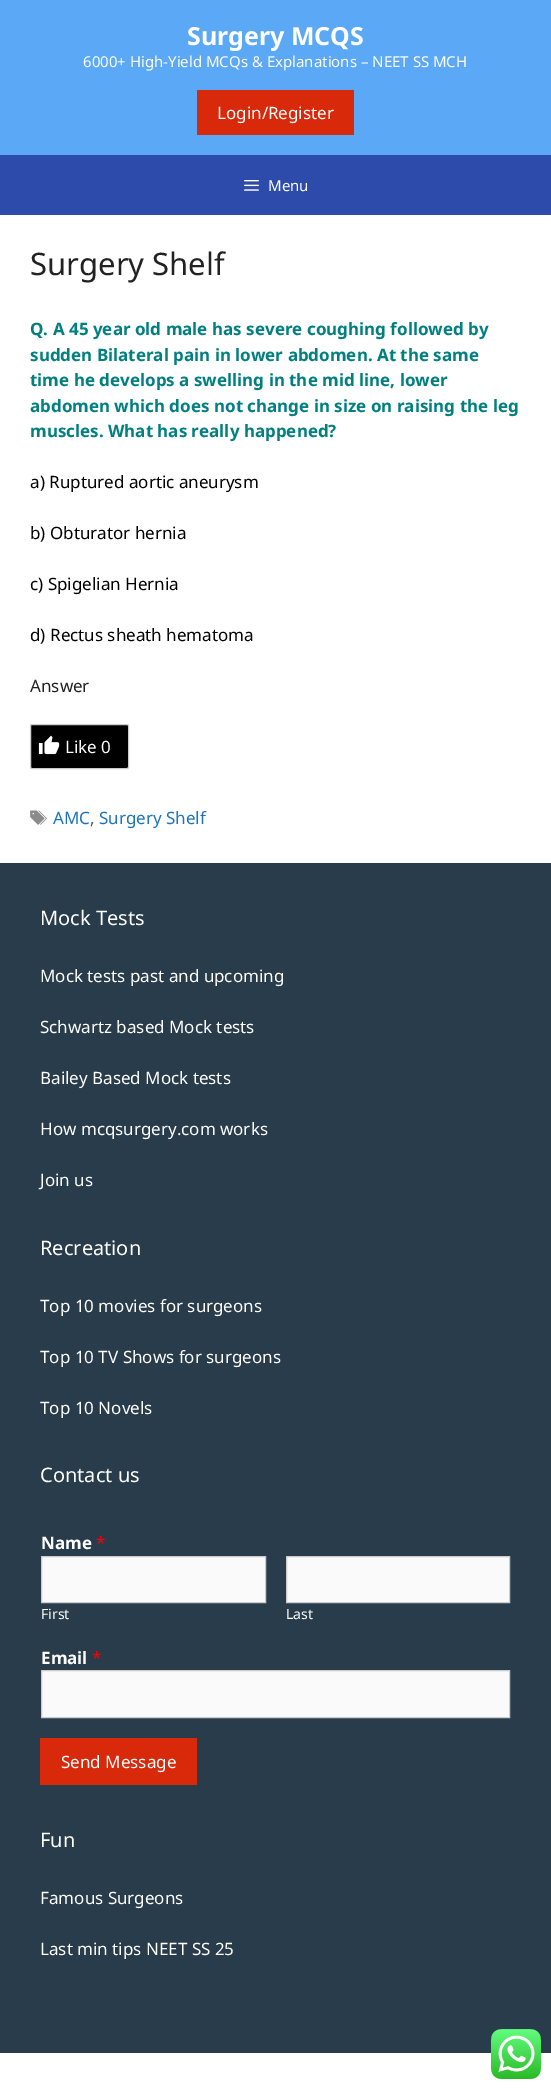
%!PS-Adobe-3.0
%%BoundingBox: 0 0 551 2089
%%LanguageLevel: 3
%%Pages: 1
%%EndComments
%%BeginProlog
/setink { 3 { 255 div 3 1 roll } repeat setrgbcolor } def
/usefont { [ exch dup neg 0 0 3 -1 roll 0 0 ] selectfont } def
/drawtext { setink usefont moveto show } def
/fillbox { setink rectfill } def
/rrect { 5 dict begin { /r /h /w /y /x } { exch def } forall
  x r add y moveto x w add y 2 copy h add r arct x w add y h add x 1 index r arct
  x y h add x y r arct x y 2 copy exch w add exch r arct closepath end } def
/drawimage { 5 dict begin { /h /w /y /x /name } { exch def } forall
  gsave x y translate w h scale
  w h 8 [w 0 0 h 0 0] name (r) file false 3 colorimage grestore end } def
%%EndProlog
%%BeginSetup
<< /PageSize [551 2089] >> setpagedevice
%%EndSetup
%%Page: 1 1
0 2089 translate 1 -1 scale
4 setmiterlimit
0 0 551 2089 45 75 171 fillbox
0 0 551 155 90 168 246 fillbox
(Surgery MCQS) 187 45 /NotoSans-Bold 25 255 255 255 drawtext
(6000+ High-Yield MCQs & Explanations – NEET SS MCH) 83 67 /NotoSans-Regular 15 255 255 255 drawtext
197 90 157 45 216 41 10 fillbox
(Login/Register) 217 119 /NotoSans-Regular 17 255 255 255 drawtext
(assets/img1.rgb) 244 180 15 11 drawimage
(Menu) 268 191 /NotoSans-Regular 15 255 255 255 drawtext
0 215 551 648 255 255 255 fillbox
(Surgery Shelf) 30 275 /NotoSans-Regular 31 34 34 34 drawtext
(Q. A 45 year old male has severe coughing followed by) 30 335 /NotoSans-Bold 17 0 128 128 drawtext
(sudden Bilateral pain in lower abdomen. At the same) 30 361 /NotoSans-Bold 17 0 128 128 drawtext
(time he develops a swelling in the mid line, lower) 30 386 /NotoSans-Bold 17 0 128 128 drawtext
(abdomen which does not change in size on raising the leg) 30 412 /NotoSans-Bold 17 0 128 128 drawtext
(muscles. What has really happened?) 30 437 /NotoSans-Bold 17 0 128 128 drawtext
(a\) Ruptured aortic aneurysm) 30 488 /NotoSans-Regular 17 0 0 0 drawtext
(b\) Obturator hernia) 30 539 /NotoSans-Regular 17 0 0 0 drawtext
(c\) Spigelian Hernia) 30 590 /NotoSans-Regular 17 0 0 0 drawtext
(d\) Rectus sheath hematoma) 30 641 /NotoSans-Regular 17 0 0 0 drawtext
(Answer) 30 692 /NotoSans-Regular 17 34 34 34 drawtext
0 0 0 setink
30.5 724.5 98 44 1.5 rrect gsave fill grestore
204 204 204 setink
stroke
(assets/img2.rgb) 38 735 22 20 drawimage
(Like 0) 65 753 /NotoSans-Regular 17 255 255 255 drawtext
(assets/img3.rgb) 30 810 17 15 drawimage
(AMC) 53 824 /NotoSans-Regular 17 30 115 190 drawtext
(,) 90 824 /NotoSans-Regular 17 89 89 89 drawtext
(Surgery Shelf) 99 824 /NotoSans-Regular 17 30 115 190 drawtext
0 863 551 1190 40 60 76 fillbox
(Mock Tests) 40 925 /NotoSans-Regular 20 255 255 255 drawtext
(Mock tests past and upcoming) 40 982 /NotoSans-Regular 17 255 255 255 drawtext
(Schwartz based Mock tests) 40 1033 /NotoSans-Regular 17 255 255 255 drawtext
(Bailey Based Mock tests) 40 1084 /NotoSans-Regular 17 255 255 255 drawtext
(How mcqsurgery.com works) 40 1135 /NotoSans-Regular 17 255 255 255 drawtext
(Join us) 40 1186 /NotoSans-Regular 17 255 255 255 drawtext
(Recreation) 40 1255 /NotoSans-Regular 20 255 255 255 drawtext
(Top 10 movies for surgeons) 40 1312 /NotoSans-Regular 17 255 255 255 drawtext
(Top 10 TV Shows for surgeons) 40 1363 /NotoSans-Regular 17 255 255 255 drawtext
(Top 10 Novels) 40 1414 /NotoSans-Regular 17 255 255 255 drawtext
(Contact us) 40 1482 /NotoSans-Regular 20 255 255 255 drawtext
(Name) 41 1549 /NotoSans-Bold 17 255 255 255 drawtext
(*) 96 1549 /NotoSans-Regular 17 255 0 0 drawtext
250 250 250 setink
41.5 1556.5 moveto 265.5 1556.5 lineto 265.5 1602.5 lineto 41.5 1602.5 lineto closepath gsave fill grestore
204 204 204 setink
stroke
(First) 41 1619 /NotoSans-Regular 14 255 255 255 drawtext
250 250 250 setink
286.5 1556.5 moveto 509.5 1556.5 lineto 509.5 1602.5 lineto 286.5 1602.5 lineto closepath gsave fill grestore
204 204 204 setink
stroke
(Last) 286 1619 /NotoSans-Regular 14 255 255 255 drawtext
(Email) 41 1664 /NotoSans-Bold 17 255 255 255 drawtext
(*) 92 1664 /NotoSans-Regular 17 255 0 0 drawtext
250 250 250 setink
41.5 1670.5 moveto 509.5 1670.5 lineto 509.5 1717.5 lineto 41.5 1717.5 lineto closepath gsave fill grestore
204 204 204 setink
stroke
40 1738 157 47 216 41 10 fillbox
(Send Message) 61 1768 /NotoSans-Regular 17 255 255 255 drawtext
(Fun) 40 1847 /NotoSans-Regular 20 255 255 255 drawtext
(Famous Surgeons) 40 1904 /NotoSans-Regular 17 255 255 255 drawtext
(Last min tips NEET SS 25) 40 1955 /NotoSans-Regular 17 255 255 255 drawtext
0 2053 551 36 255 255 255 fillbox
(assets/img4.rgb) 491 2029 50 50 drawimage
showpage
%%EOF
